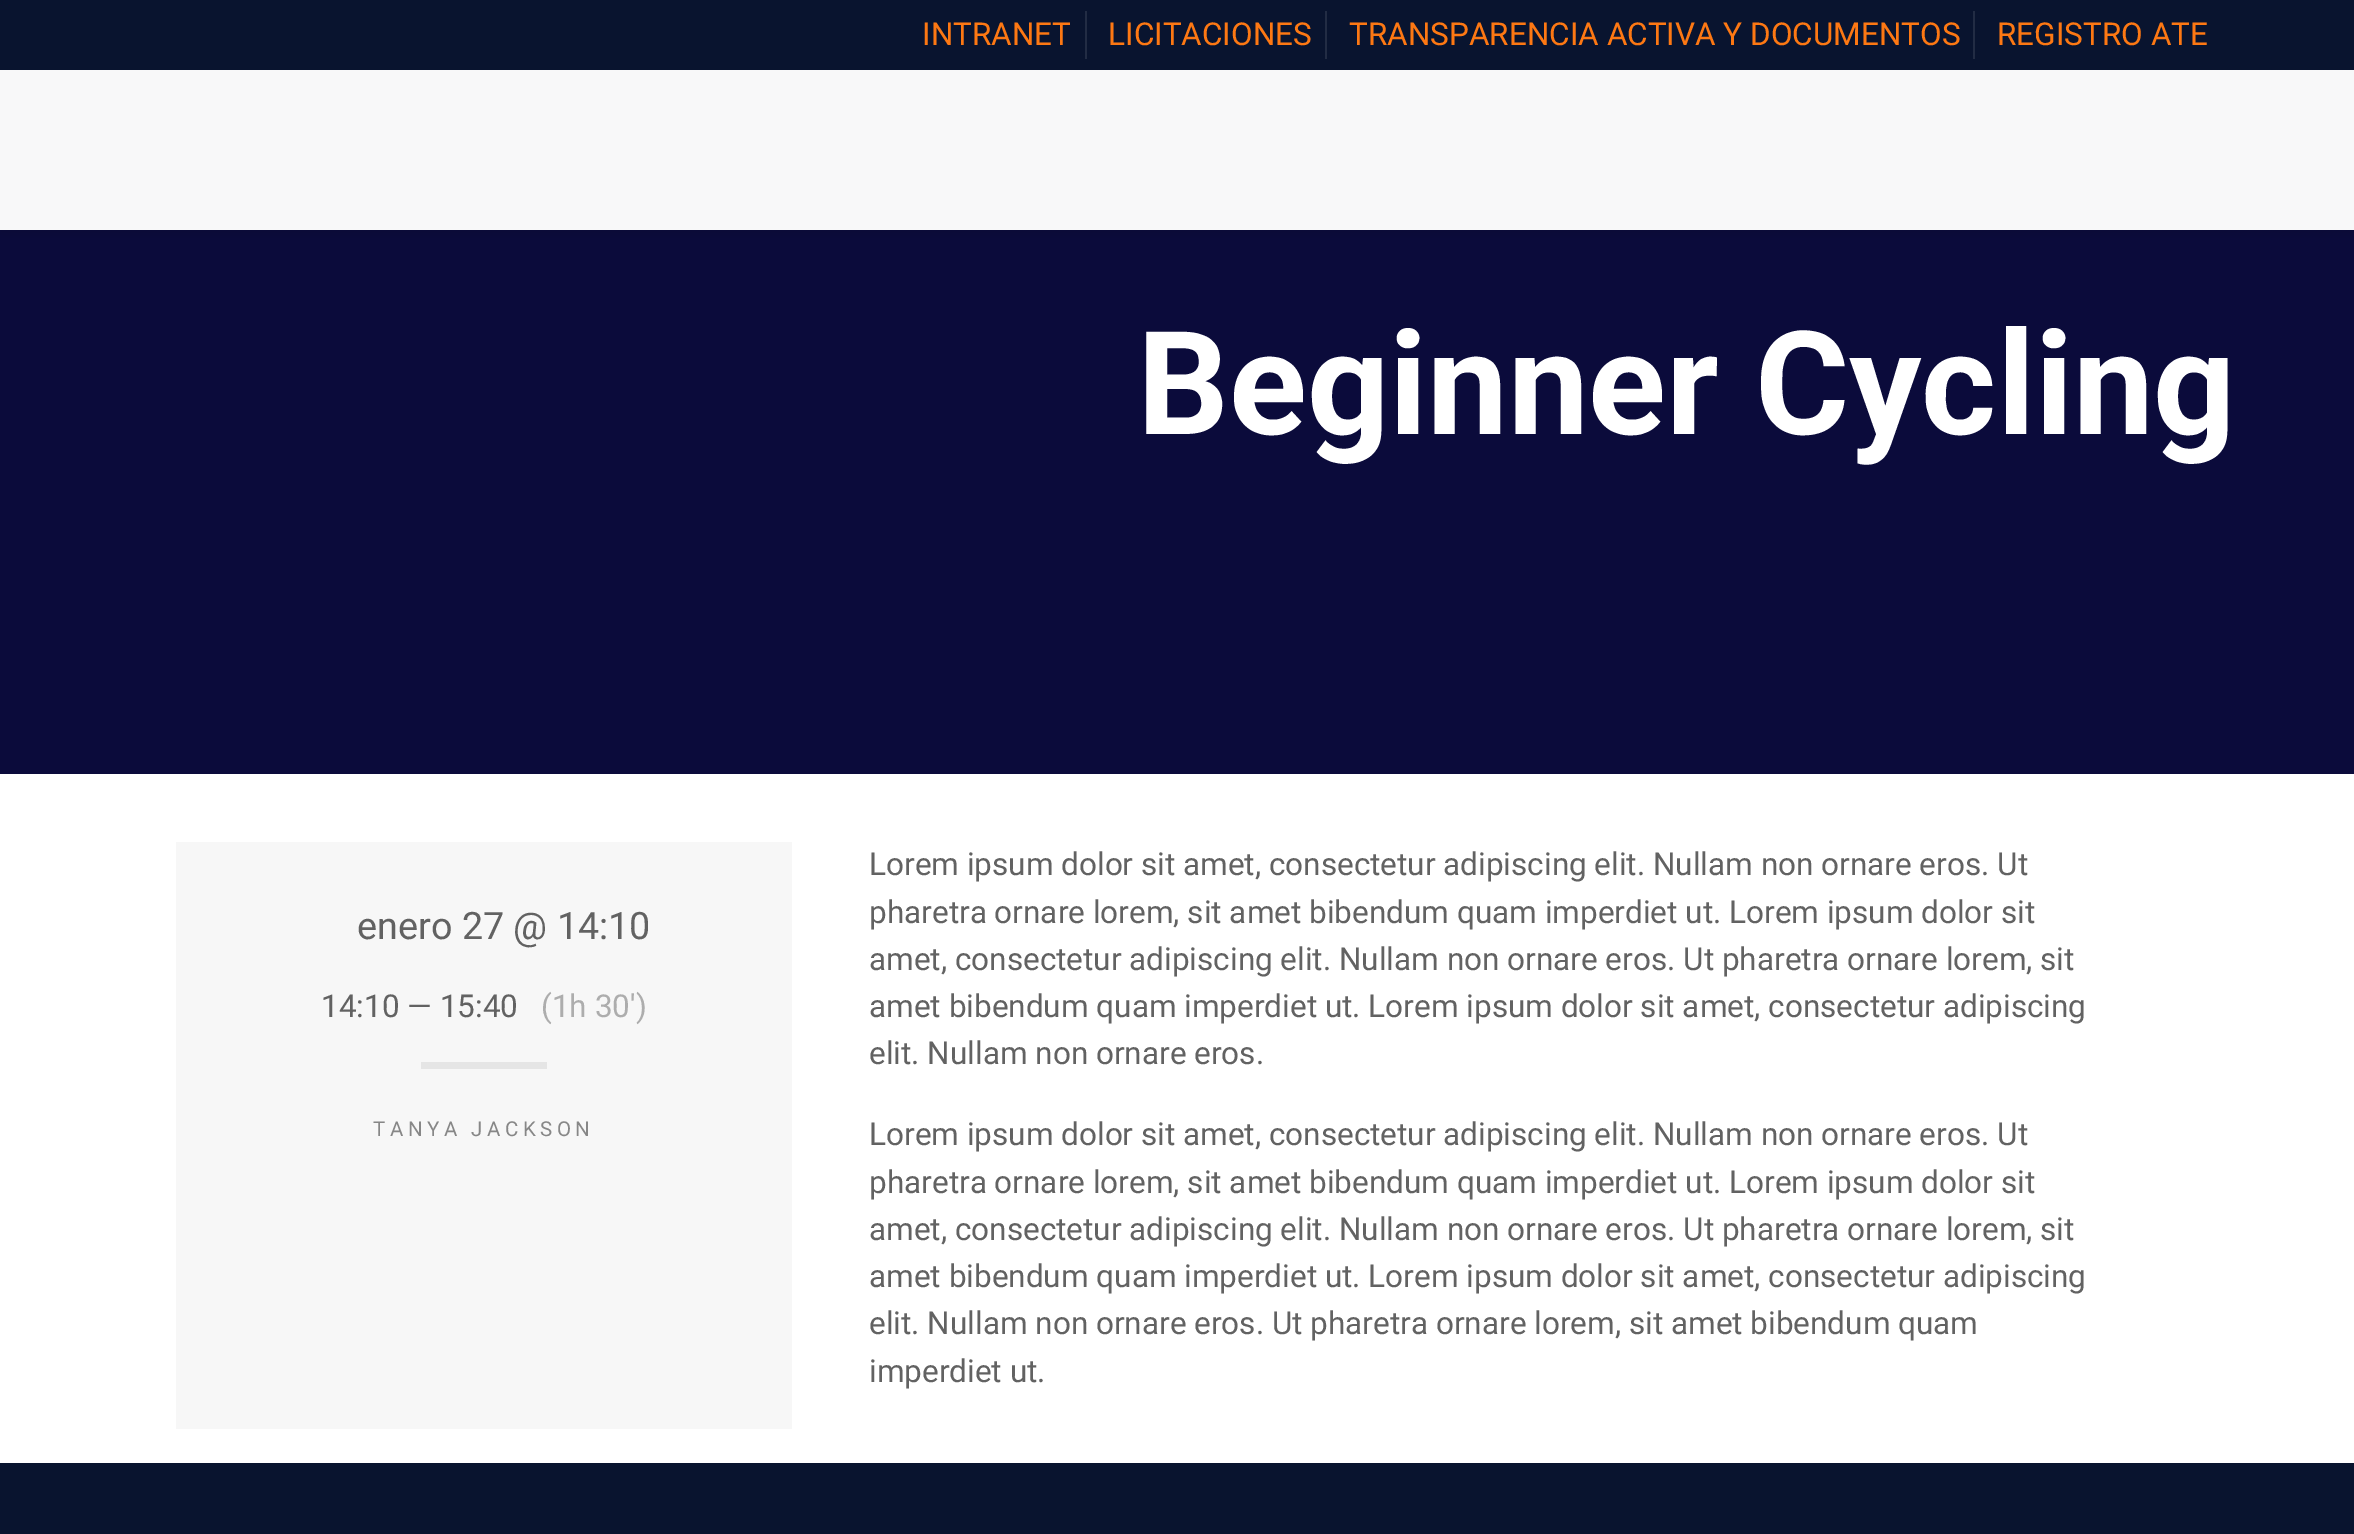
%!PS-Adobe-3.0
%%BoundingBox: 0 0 2354 1534
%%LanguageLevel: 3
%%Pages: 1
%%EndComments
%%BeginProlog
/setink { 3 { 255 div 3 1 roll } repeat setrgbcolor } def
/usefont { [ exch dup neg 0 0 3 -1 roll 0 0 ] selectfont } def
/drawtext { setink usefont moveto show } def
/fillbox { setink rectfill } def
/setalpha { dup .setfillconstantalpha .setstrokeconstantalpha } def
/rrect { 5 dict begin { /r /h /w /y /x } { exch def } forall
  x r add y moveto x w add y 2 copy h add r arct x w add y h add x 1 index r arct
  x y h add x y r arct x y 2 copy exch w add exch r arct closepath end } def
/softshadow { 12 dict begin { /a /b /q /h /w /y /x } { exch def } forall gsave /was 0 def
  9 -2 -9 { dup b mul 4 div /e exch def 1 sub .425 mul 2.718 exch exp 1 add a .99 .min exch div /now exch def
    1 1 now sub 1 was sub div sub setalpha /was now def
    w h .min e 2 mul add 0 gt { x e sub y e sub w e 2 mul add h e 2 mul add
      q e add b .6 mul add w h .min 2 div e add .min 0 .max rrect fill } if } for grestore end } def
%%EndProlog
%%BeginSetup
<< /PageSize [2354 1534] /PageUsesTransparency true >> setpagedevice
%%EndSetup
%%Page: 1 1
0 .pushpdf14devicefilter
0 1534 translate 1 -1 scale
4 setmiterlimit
0 0 2354 1534 255 255 255 fillbox
0 230 2354 544 11 11 59 fillbox
0 0 2354 70 9 20 47 fillbox
1085 11 2 48 34 44 68 fillbox
(INTRANET) 922 45 /Roboto-Regular 31.5 253 120 19 drawtext
1325 11 2 48 34 44 68 fillbox
(LICITACIONES) 1108 45 /Roboto-Regular 31.5 253 120 19 drawtext
1973 11 2 48 34 44 68 fillbox
(TRANSPARENCIA ACTIVA Y DOCUMENTOS) 1349 45 /Roboto-Regular 31.5 253 120 19 drawtext
(REGISTRO ATE) 1997 45 /Roboto-Regular 31.5 253 120 19 drawtext
0 0 0 setink
0 74 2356 160 0 5.5 0.1 softshadow
0 70 2354 160 248 248 249 fillbox
(Beginner Cycling) 1137 434 /Roboto-Bold 144 255 255 255 drawtext
0.05 setalpha
176 842 616 587 98 98 98 fillbox
1 setalpha
(enero 27 @ 14:10) 357 939 /Roboto-Regular 37.75 98 98 98 drawtext
(14:10 — 15:40) 321 1017 /Roboto-Regular 31.5 98 98 98 drawtext
(\(1h 30′\)) 541 1017 /Roboto-Regular 31.5 173 173 173 drawtext
421 1062 126 7 229 229 229 fillbox
/Roboto-Regular 20.5 usefont
135 135 135 setink
373 1136 moveto 4.5 0 (TANYA JACKSON) ashow
(Lorem ipsum dolor sit amet, consectetur adipiscing elit. Nullam non ornare eros. Ut) 869 875 /Roboto-Regular 31.5 98 98 98 drawtext
(pharetra ornare lorem, sit amet bibendum quam imperdiet ut. Lorem ipsum dolor sit) 869 923 /Roboto-Regular 31.5 98 98 98 drawtext
(amet, consectetur adipiscing elit. Nullam non ornare eros. Ut pharetra ornare lorem, sit) 869 970 /Roboto-Regular 31.5 98 98 98 drawtext
(amet bibendum quam imperdiet ut. Lorem ipsum dolor sit amet, consectetur adipiscing) 869 1017 /Roboto-Regular 31.5 98 98 98 drawtext
(elit. Nullam non ornare eros.) 869 1064 /Roboto-Regular 31.5 98 98 98 drawtext
(Lorem ipsum dolor sit amet, consectetur adipiscing elit. Nullam non ornare eros. Ut) 869 1145 /Roboto-Regular 31.5 98 98 98 drawtext
(pharetra ornare lorem, sit amet bibendum quam imperdiet ut. Lorem ipsum dolor sit) 869 1193 /Roboto-Regular 31.5 98 98 98 drawtext
(amet, consectetur adipiscing elit. Nullam non ornare eros. Ut pharetra ornare lorem, sit) 869 1240 /Roboto-Regular 31.5 98 98 98 drawtext
(amet bibendum quam imperdiet ut. Lorem ipsum dolor sit amet, consectetur adipiscing) 869 1287 /Roboto-Regular 31.5 98 98 98 drawtext
(elit. Nullam non ornare eros. Ut pharetra ornare lorem, sit amet bibendum quam) 869 1334 /Roboto-Regular 31.5 98 98 98 drawtext
(imperdiet ut.) 869 1382 /Roboto-Regular 31.5 98 98 98 drawtext
0 1463 2354 71 9 20 47 fillbox
.poppdf14devicefilter showpage
%%EOF
